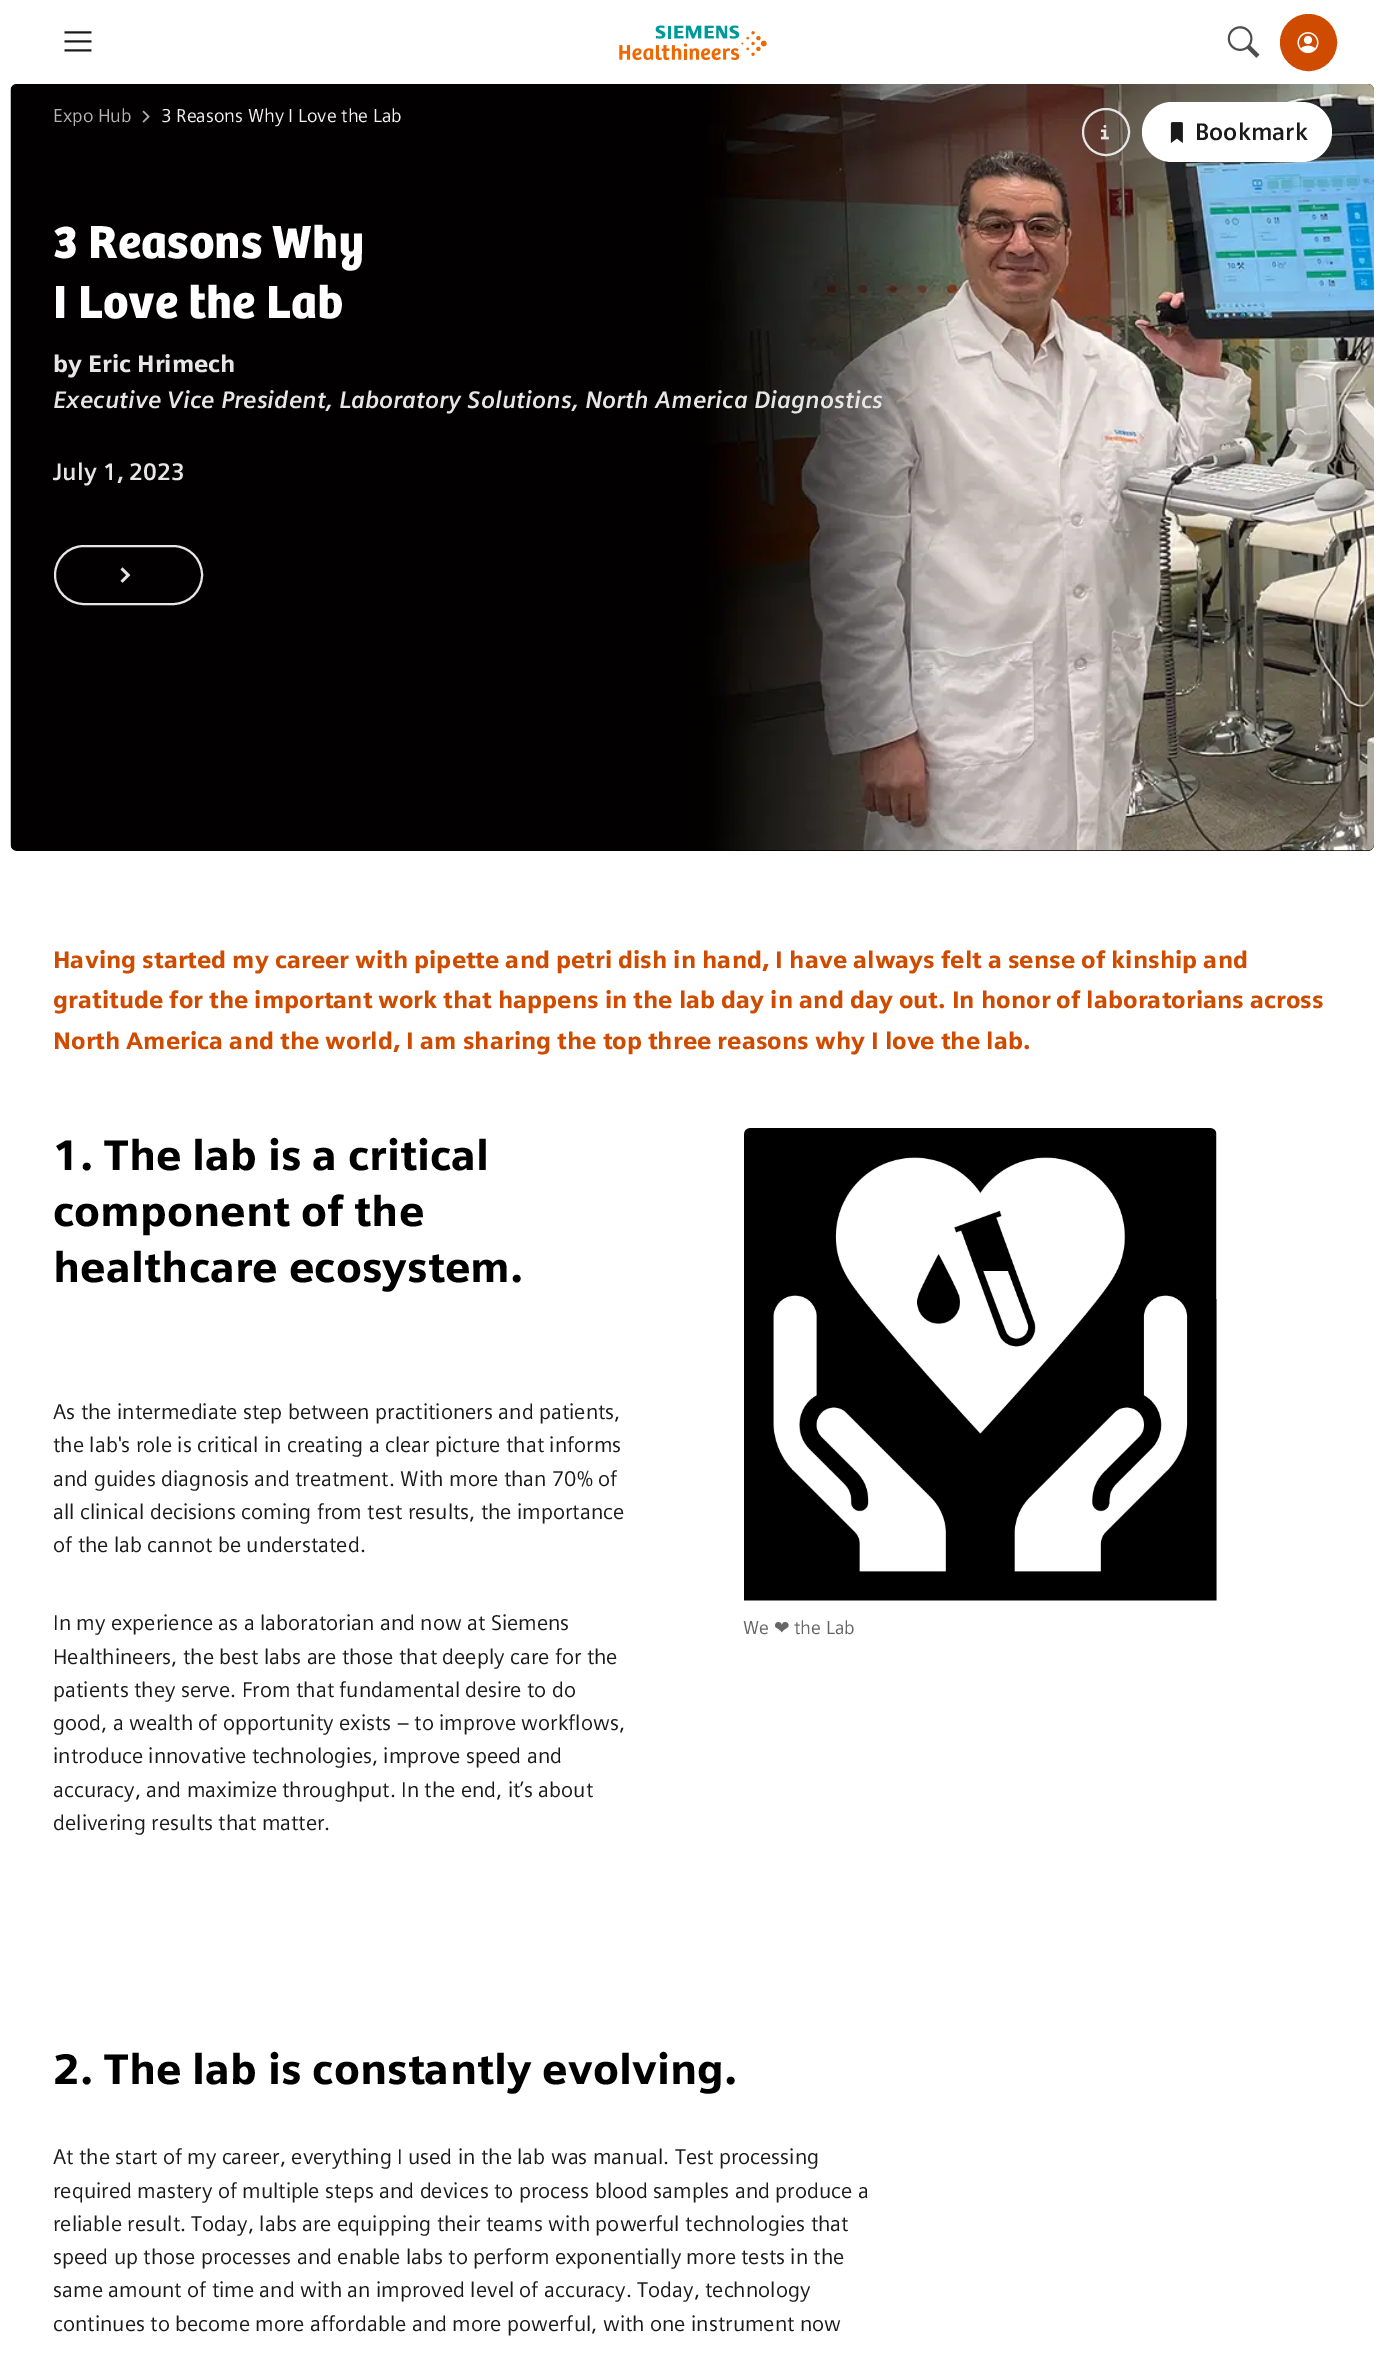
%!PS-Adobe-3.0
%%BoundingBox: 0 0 1384 2354
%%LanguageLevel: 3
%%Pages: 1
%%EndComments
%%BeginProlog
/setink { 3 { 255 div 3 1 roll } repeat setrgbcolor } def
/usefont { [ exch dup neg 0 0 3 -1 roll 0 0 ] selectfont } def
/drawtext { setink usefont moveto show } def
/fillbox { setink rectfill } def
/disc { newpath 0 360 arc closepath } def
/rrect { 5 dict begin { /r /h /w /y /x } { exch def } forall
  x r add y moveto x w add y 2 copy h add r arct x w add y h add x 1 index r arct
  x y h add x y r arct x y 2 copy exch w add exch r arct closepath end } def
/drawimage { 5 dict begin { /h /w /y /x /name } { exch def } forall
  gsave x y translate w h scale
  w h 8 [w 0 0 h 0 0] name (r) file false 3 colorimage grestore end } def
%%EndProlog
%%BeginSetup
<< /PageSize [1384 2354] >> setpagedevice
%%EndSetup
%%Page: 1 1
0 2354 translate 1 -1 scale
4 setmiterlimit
0 0 1384 2354 255 255 255 fillbox
(assets/img1.rgb) 64 31 28 21 drawimage
(assets/img2.rgb) 619 25 148 35 drawimage
(assets/img3.rgb) 1227 26 33 32 drawimage
207 75 0 setink
1308.5 42.5 27.5 disc gsave fill grestore
2 setlinewidth
stroke
(assets/img4.rgb) 1297 32 22 22 drawimage
0 0 0 setink
11 84 1363 767 6 rrect fill
(assets/img8.rgb) 10 84 1364 767 drawimage
(Expo Hub) 53 122 /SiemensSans-Regular 18.7 179 179 179 drawtext
(assets/img5.rgb) 142 110 8 13 drawimage
(3 Reasons Why I Love the Lab) 161 122 /SiemensSans-Regular 18.7 242 242 242 drawtext
230 230 230 setink
1106 132 23 disc stroke
(assets/img6.rgb) 1100 124 9 16 drawimage
255 255 255 setink
1142 102 190 60 30 rrect fill
(assets/img7.rgb) 1170 122 13 21 drawimage
(Bookmark) 1195 140 /SiemensSans-Bold 24 26 26 26 drawtext
(3 Reasons Why) 53 258 /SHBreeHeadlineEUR-Bold 48 255 255 255 drawtext
(I Love the Lab) 53 318 /SHBreeHeadlineEUR-Bold 48 255 255 255 drawtext
(by Eric Hrimech) 53 372 /SiemensSans-Black 24 230 230 230 drawtext
(Executive Vice President, Laboratory Solutions, North America Diagnostics) 53 408 /SiemensSans-BoldItalic 24 230 230 230 drawtext
(July 1, 2023) 53 480 /SiemensSans-Bold 24 230 230 230 drawtext
55 546 147 58 29 rrect stroke
(assets/img9.rgb) 120 567 11 16 drawimage
(Having started my career with pipette and petri dish in hand, I have always felt a sense of kinship and) 53 968 /SiemensSans-Black 24 207 75 0 drawtext
(gratitude for the important work that happens in the lab day in and day out. In honor of laboratorians across) 53 1008 /SiemensSans-Black 24 207 75 0 drawtext
(North America and the world, I am sharing the top three reasons why I love the lab.) 53 1049 /SiemensSans-Black 24 207 75 0 drawtext
(1. The lab is a critical) 53 1170 /SiemensSans-Black 42.7 0 0 0 drawtext
(component of the) 53 1226 /SiemensSans-Black 42.7 0 0 0 drawtext
(healthcare ecosystem.) 53 1282 /SiemensSans-Black 42.7 0 0 0 drawtext
(As the intermediate step between practitioners and patients,) 53 1419 /SiemensSans-Regular 21.35 26 26 26 drawtext
(the lab's role is critical in creating a clear picture that informs) 53 1452 /SiemensSans-Regular 21.35 26 26 26 drawtext
(and guides diagnosis and treatment. With more than 70% of) 53 1486 /SiemensSans-Regular 21.35 26 26 26 drawtext
(all clinical decisions coming from test results, the importance) 53 1519 /SiemensSans-Regular 21.35 26 26 26 drawtext
(of the lab cannot be understated.) 53 1552 /SiemensSans-Regular 21.35 26 26 26 drawtext
(In my experience as a laboratorian and now at Siemens) 53 1630 /SiemensSans-Regular 21.35 26 26 26 drawtext
(Healthineers, the best labs are those that deeply care for the) 53 1664 /SiemensSans-Regular 21.35 26 26 26 drawtext
(patients they serve. From that fundamental desire to do) 53 1697 /SiemensSans-Regular 21.35 26 26 26 drawtext
(good, a wealth of opportunity exists – to improve workflows,) 53 1730 /SiemensSans-Regular 21.35 26 26 26 drawtext
(introduce innovative technologies, improve speed and) 53 1763 /SiemensSans-Regular 21.35 26 26 26 drawtext
(accuracy, and maximize throughput. In the end, it’s about) 53 1797 /SiemensSans-Regular 21.35 26 26 26 drawtext
(delivering results that matter.) 53 1830 /SiemensSans-Regular 21.35 26 26 26 drawtext
(assets/img10.rgb) 744 1128 473 473 drawimage
(We) 743 1634 /SiemensSans-Regular 18.7 102 102 102 drawtext
(❤) 774 1634 /DejaVuSans-Regular 18.7 102 102 102 drawtext
(the Lab) 794 1634 /SiemensSans-Regular 18.7 102 102 102 drawtext
(2. The lab is constantly evolving.) 53 2084 /SiemensSans-Black 42.7 0 0 0 drawtext
(At the start of my career, everything I used in the lab was manual. Test processing) 53 2164 /SiemensSans-Regular 21.35 26 26 26 drawtext
(required mastery of multiple steps and devices to process blood samples and produce a) 53 2198 /SiemensSans-Regular 21.35 26 26 26 drawtext
(reliable result. Today, labs are equipping their teams with powerful technologies that) 53 2231 /SiemensSans-Regular 21.35 26 26 26 drawtext
(speed up those processes and enable labs to perform exponentially more tests in the) 53 2264 /SiemensSans-Regular 21.35 26 26 26 drawtext
(same amount of time and with an improved level of accuracy. Today, technology) 53 2297 /SiemensSans-Regular 21.35 26 26 26 drawtext
(continues to become more affordable and more powerful, with one instrument now) 53 2331 /SiemensSans-Regular 21.35 26 26 26 drawtext
showpage
%%EOF
